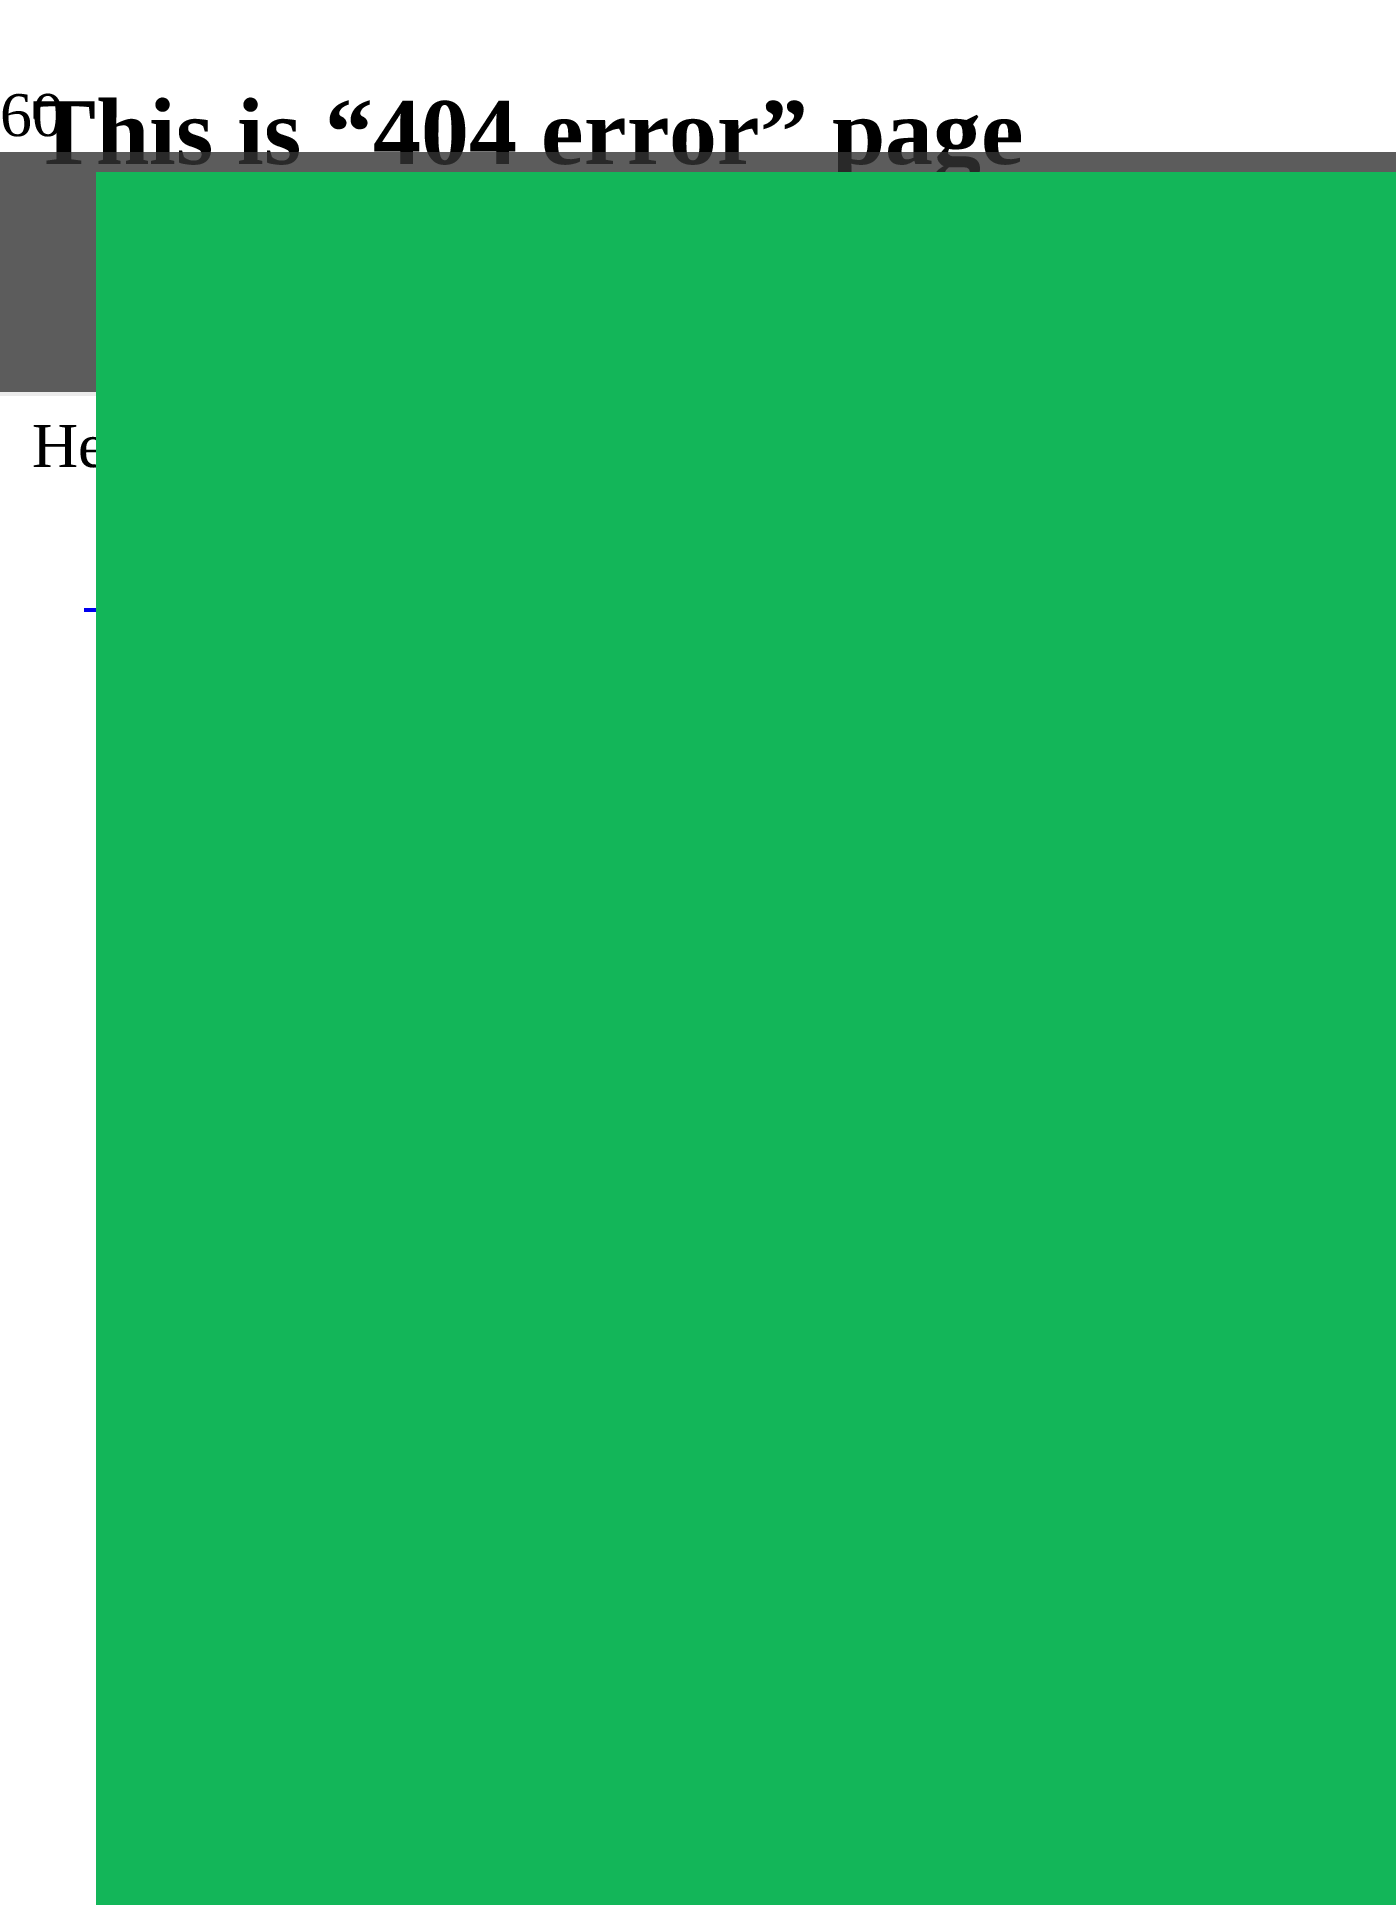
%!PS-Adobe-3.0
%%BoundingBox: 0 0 1396 1905
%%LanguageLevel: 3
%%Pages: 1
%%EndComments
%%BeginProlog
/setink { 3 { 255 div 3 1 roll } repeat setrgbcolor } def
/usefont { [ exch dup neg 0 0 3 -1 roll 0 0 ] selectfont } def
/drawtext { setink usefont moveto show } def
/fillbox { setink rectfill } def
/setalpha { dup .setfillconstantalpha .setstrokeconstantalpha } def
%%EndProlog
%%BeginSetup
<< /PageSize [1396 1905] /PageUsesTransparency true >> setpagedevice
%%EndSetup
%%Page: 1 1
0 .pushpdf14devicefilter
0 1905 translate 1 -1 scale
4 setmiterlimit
0 0 1396 1905 255 255 255 fillbox
(This is “404 error” page) 32 164 /LiberationSerif-Bold 96 0 0 0 drawtext
(60) 0 136 /LiberationSerif-Regular 64 0 0 0 drawtext
0.08 setalpha
0 392 96 4 0 0 0 fillbox
0.8 setalpha
0 152 1396 240 51 51 51 fillbox
1 setalpha
(He) 32 467 /LiberationSerif-Regular 64 0 0 0 drawtext
96 172 1300 1733 19 182 89 fillbox
84 608 12 4 0 0 238 fillbox
.poppdf14devicefilter showpage
%%EOF
